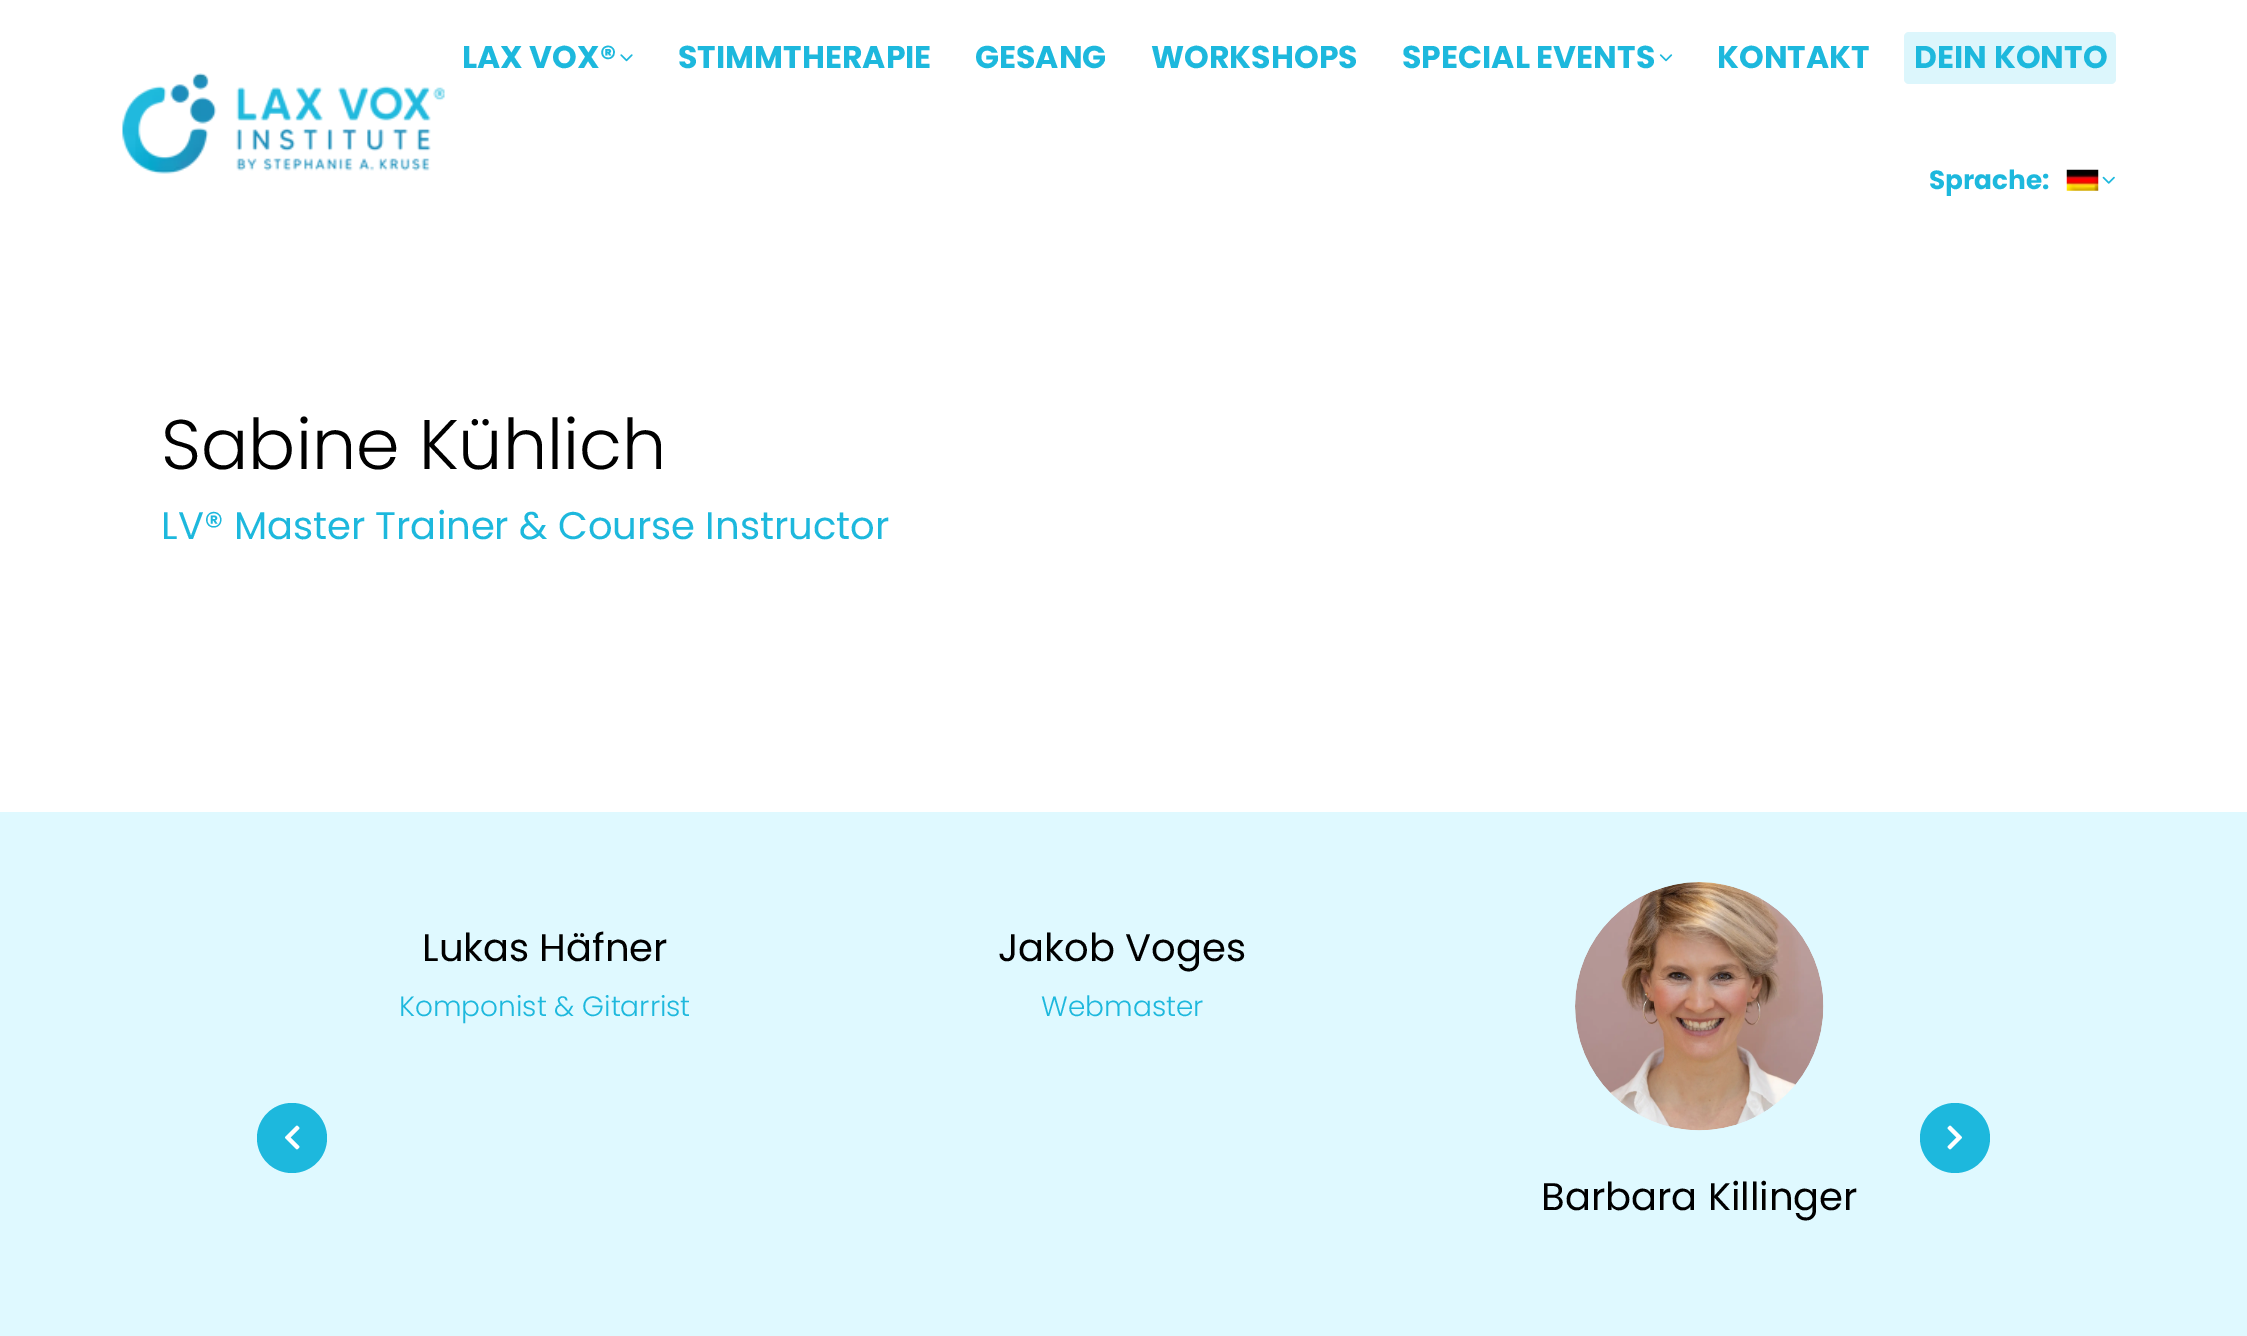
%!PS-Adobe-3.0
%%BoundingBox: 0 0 2247 1336
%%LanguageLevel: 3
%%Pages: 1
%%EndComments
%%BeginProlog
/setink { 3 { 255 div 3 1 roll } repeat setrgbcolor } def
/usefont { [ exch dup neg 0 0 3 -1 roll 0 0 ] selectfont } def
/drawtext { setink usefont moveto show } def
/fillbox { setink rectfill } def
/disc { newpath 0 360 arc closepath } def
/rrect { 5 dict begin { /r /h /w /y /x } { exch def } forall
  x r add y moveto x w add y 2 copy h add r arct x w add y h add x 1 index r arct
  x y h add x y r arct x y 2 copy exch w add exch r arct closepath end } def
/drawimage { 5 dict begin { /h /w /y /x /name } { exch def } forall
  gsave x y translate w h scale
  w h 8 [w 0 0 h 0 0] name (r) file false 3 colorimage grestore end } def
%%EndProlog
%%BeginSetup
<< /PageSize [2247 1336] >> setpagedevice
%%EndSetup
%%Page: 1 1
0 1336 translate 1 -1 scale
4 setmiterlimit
0 0 2247 1336 255 255 255 fillbox
(assets/img1.rgb) 122 73 323 101 drawimage
(LAX VOX®) 462 68 /Poppins-Bold 31.5 29 184 221 drawtext
(assets/img2.rgb) 620 54 13 8 drawimage
(STIMMTHERAPIE) 678 68 /Poppins-Bold 31.5 29 184 221 drawtext
(GESANG) 975 68 /Poppins-Bold 31.5 29 184 221 drawtext
(WORKSHOPS) 1151 68 /Poppins-Bold 31.5 29 184 221 drawtext
(SPECIAL EVENTS) 1402 68 /Poppins-Bold 31.5 29 184 221 drawtext
(assets/img3.rgb) 1659 54 14 8 drawimage
(KONTAKT) 1717 68 /Poppins-Bold 31.5 29 184 221 drawtext
220 246 252 setink
1904 32 212 52 5 rrect fill
(DEIN KONTO) 1914 68 /Poppins-Bold 31.5 29 184 221 drawtext
(Sprache:) 1929 189 /Poppins-Bold 26.25 29 184 221 drawtext
(assets/img4.rgb) 2066 169 33 22 drawimage
(assets/img5.rgb) 2102 176 13 8 drawimage
(Sabine Kühlich) 161 469 /Poppins-Light 70 0 0 0 drawtext
(LV® Master Trainer & Course Instructor) 161 539 /Poppins-Regular 38.5 29 184 221 drawtext
0 812 2247 524 223 249 255 fillbox
(Lukas Häfner) 422 961 /Poppins-Regular 38.5 0 0 0 drawtext
(Komponist & Gitarrist) 399 1016 /Poppins-Light 28 29 184 221 drawtext
(Jakob Voges) 998 961 /Poppins-Regular 38.5 0 0 0 drawtext
(Webmaster) 1041 1016 /Poppins-Light 28 29 184 221 drawtext
(assets/img6.rgb) 1575 882 249 249 drawimage
(Barbara Killinger) 1541 1210 /Poppins-Regular 38.5 0 0 0 drawtext
29 184 221 setink
292 1138 35 disc fill
(assets/img7.rgb) 285 1125 15 25 drawimage
1955 1138 35 disc fill
(assets/img8.rgb) 1947 1125 15 25 drawimage
showpage
%%EOF
